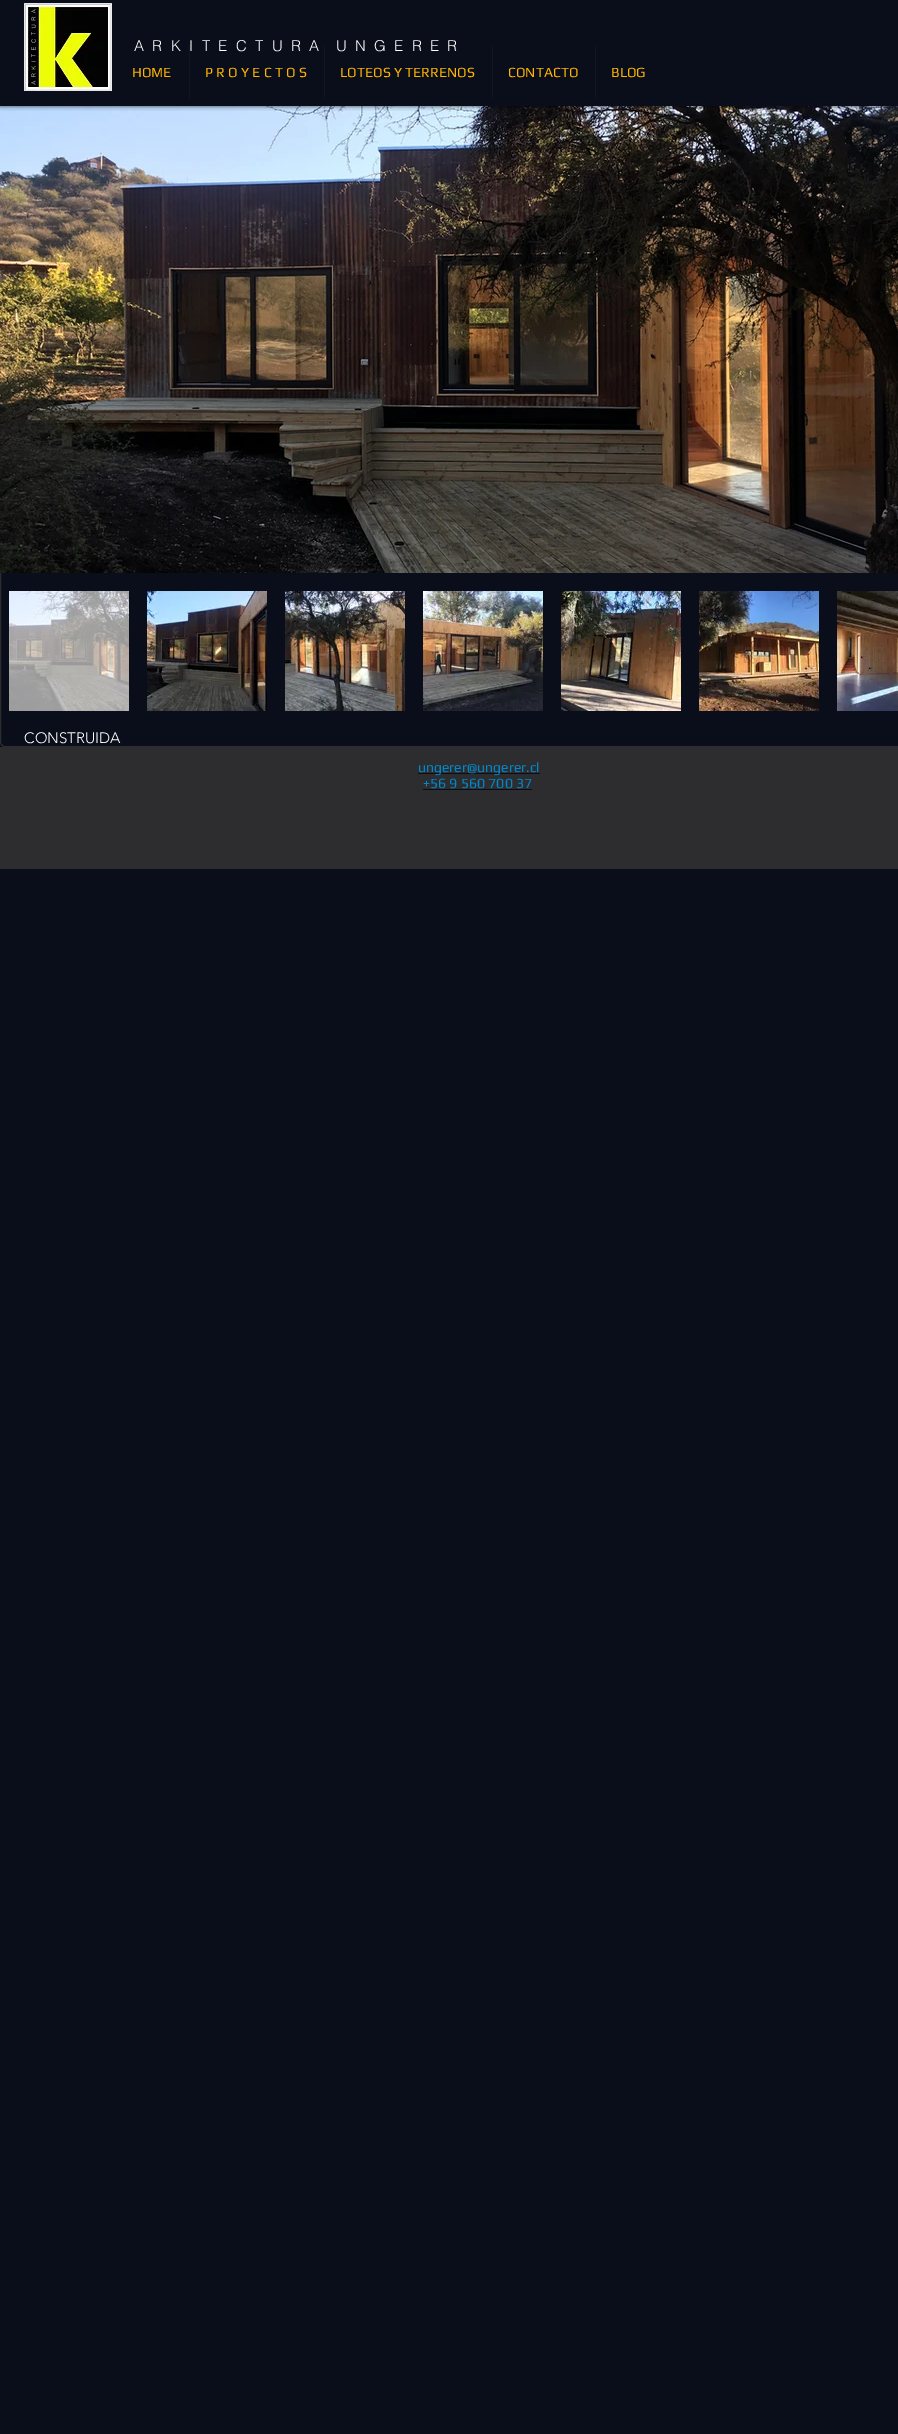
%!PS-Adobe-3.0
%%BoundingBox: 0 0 898 2434
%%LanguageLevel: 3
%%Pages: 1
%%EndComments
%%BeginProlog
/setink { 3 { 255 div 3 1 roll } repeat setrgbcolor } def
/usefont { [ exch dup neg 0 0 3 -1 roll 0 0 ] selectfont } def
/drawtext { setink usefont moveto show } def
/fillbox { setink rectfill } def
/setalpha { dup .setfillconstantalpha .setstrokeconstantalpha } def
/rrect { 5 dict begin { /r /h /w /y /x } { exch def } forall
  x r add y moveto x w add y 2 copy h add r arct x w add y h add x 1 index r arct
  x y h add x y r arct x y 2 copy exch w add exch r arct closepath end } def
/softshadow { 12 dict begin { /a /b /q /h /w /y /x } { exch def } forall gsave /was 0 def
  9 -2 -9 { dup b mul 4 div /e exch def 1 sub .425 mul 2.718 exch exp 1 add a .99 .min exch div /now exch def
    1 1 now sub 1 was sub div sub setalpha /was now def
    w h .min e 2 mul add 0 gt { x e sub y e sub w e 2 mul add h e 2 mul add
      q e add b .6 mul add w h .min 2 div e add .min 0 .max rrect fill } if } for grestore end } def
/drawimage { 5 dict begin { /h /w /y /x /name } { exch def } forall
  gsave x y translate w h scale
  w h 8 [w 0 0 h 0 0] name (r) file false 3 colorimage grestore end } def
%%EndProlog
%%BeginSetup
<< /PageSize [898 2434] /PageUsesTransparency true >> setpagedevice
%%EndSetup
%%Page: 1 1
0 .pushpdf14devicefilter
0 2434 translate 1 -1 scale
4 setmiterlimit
0 0 898 2434 10 14 27 fillbox
45 45 47 setink
0.5 106.5 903 640 4.5 rrect stroke
(assets/img2.rgb) 0 106 898 467 drawimage
gsave
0 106 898 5 rectclip
0 0 0 setink
0 0 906 106 0 2.5 0.7 softshadow
grestore
(assets/img1.rgb) 24 3 88 88 drawimage
(A  R  K  I  T  E  C  T  U  R  A    U  N  G  E  R  E  R) 134 51 /helvetica-Light 15 255 255 255 drawtext
(HOME) 132 77 /Play-Regular 14 255 180 0 drawtext
189 45 1 54 19 22 32 fillbox
(P R O Y E C T O S) 205 77 /Play-Regular 14 255 180 0 drawtext
324 45 1 54 19 22 32 fillbox
(LOTEOS Y TERRENOS) 340 77 /Play-Regular 14 255 180 0 drawtext
492 45 1 54 19 22 32 fillbox
(CONTACTO) 508 77 /Play-Regular 14 255 180 0 drawtext
595 45 1 54 19 22 32 fillbox
(BLOG) 611 77 /Play-Regular 14 255 180 0 drawtext
(assets/img3.rgb) 9 591 120 120 drawimage
(assets/img4.rgb) 147 591 120 120 drawimage
(assets/img5.rgb) 285 591 120 120 drawimage
(assets/img6.rgb) 423 591 120 120 drawimage
(assets/img7.rgb) 561 591 120 120 drawimage
(assets/img8.rgb) 699 591 120 120 drawimage
(assets/img9.rgb) 837 591 61 120 drawimage
(CONSTRUIDA) 24 743 /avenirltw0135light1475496-Light 15 255 255 255 drawtext
0 747 898 122 45 45 47 fillbox
418 773 122 1 10 14 27 fillbox
(ungerer@ungerer.cl) 418 772 /Play-Regular 14 0 136 203 drawtext
(+56 9 560 700 37) 423 788 /Play-Regular 14 0 136 203 drawtext
423 789 109 1 10 14 27 fillbox
.poppdf14devicefilter showpage
%%EOF
